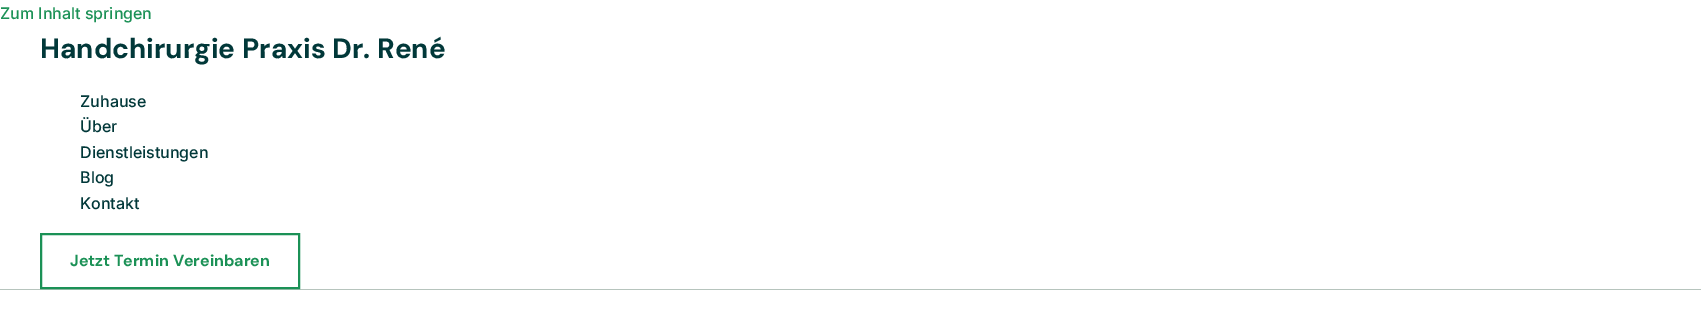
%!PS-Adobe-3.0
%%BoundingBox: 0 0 1701 331
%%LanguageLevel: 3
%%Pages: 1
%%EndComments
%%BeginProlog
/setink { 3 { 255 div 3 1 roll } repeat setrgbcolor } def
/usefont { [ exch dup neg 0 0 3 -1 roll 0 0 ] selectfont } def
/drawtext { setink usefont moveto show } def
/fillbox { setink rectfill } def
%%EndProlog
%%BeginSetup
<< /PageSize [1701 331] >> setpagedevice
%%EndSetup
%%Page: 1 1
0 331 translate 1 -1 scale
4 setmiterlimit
0 0 1701 331 255 255 255 fillbox
(Zum Inhalt springen) 0 19 /Inter-Medium 16 27 145 86 drawtext
0 289 1701 1 182 196 189 fillbox
(Handchirurgie Praxis Dr. René) 40 58 /DMSans-Bold 28 1 56 57 drawtext
(Zuhause) 80 107 /Inter-Medium 16 1 56 57 drawtext
(Über) 80 132 /Inter-Medium 16 1 56 57 drawtext
(Dienstleistungen) 80 158 /Inter-Medium 16 1 56 57 drawtext
(Blog) 80 183 /Inter-Medium 16 1 56 57 drawtext
(Kontakt) 80 209 /Inter-Medium 16 1 56 57 drawtext
27 145 86 setink
2 setlinewidth
41 234 258 54 rectstroke
(Jetzt Termin Vereinbaren) 70 266 /DMSans-Bold 16 27 145 86 drawtext
showpage
%%EOF
